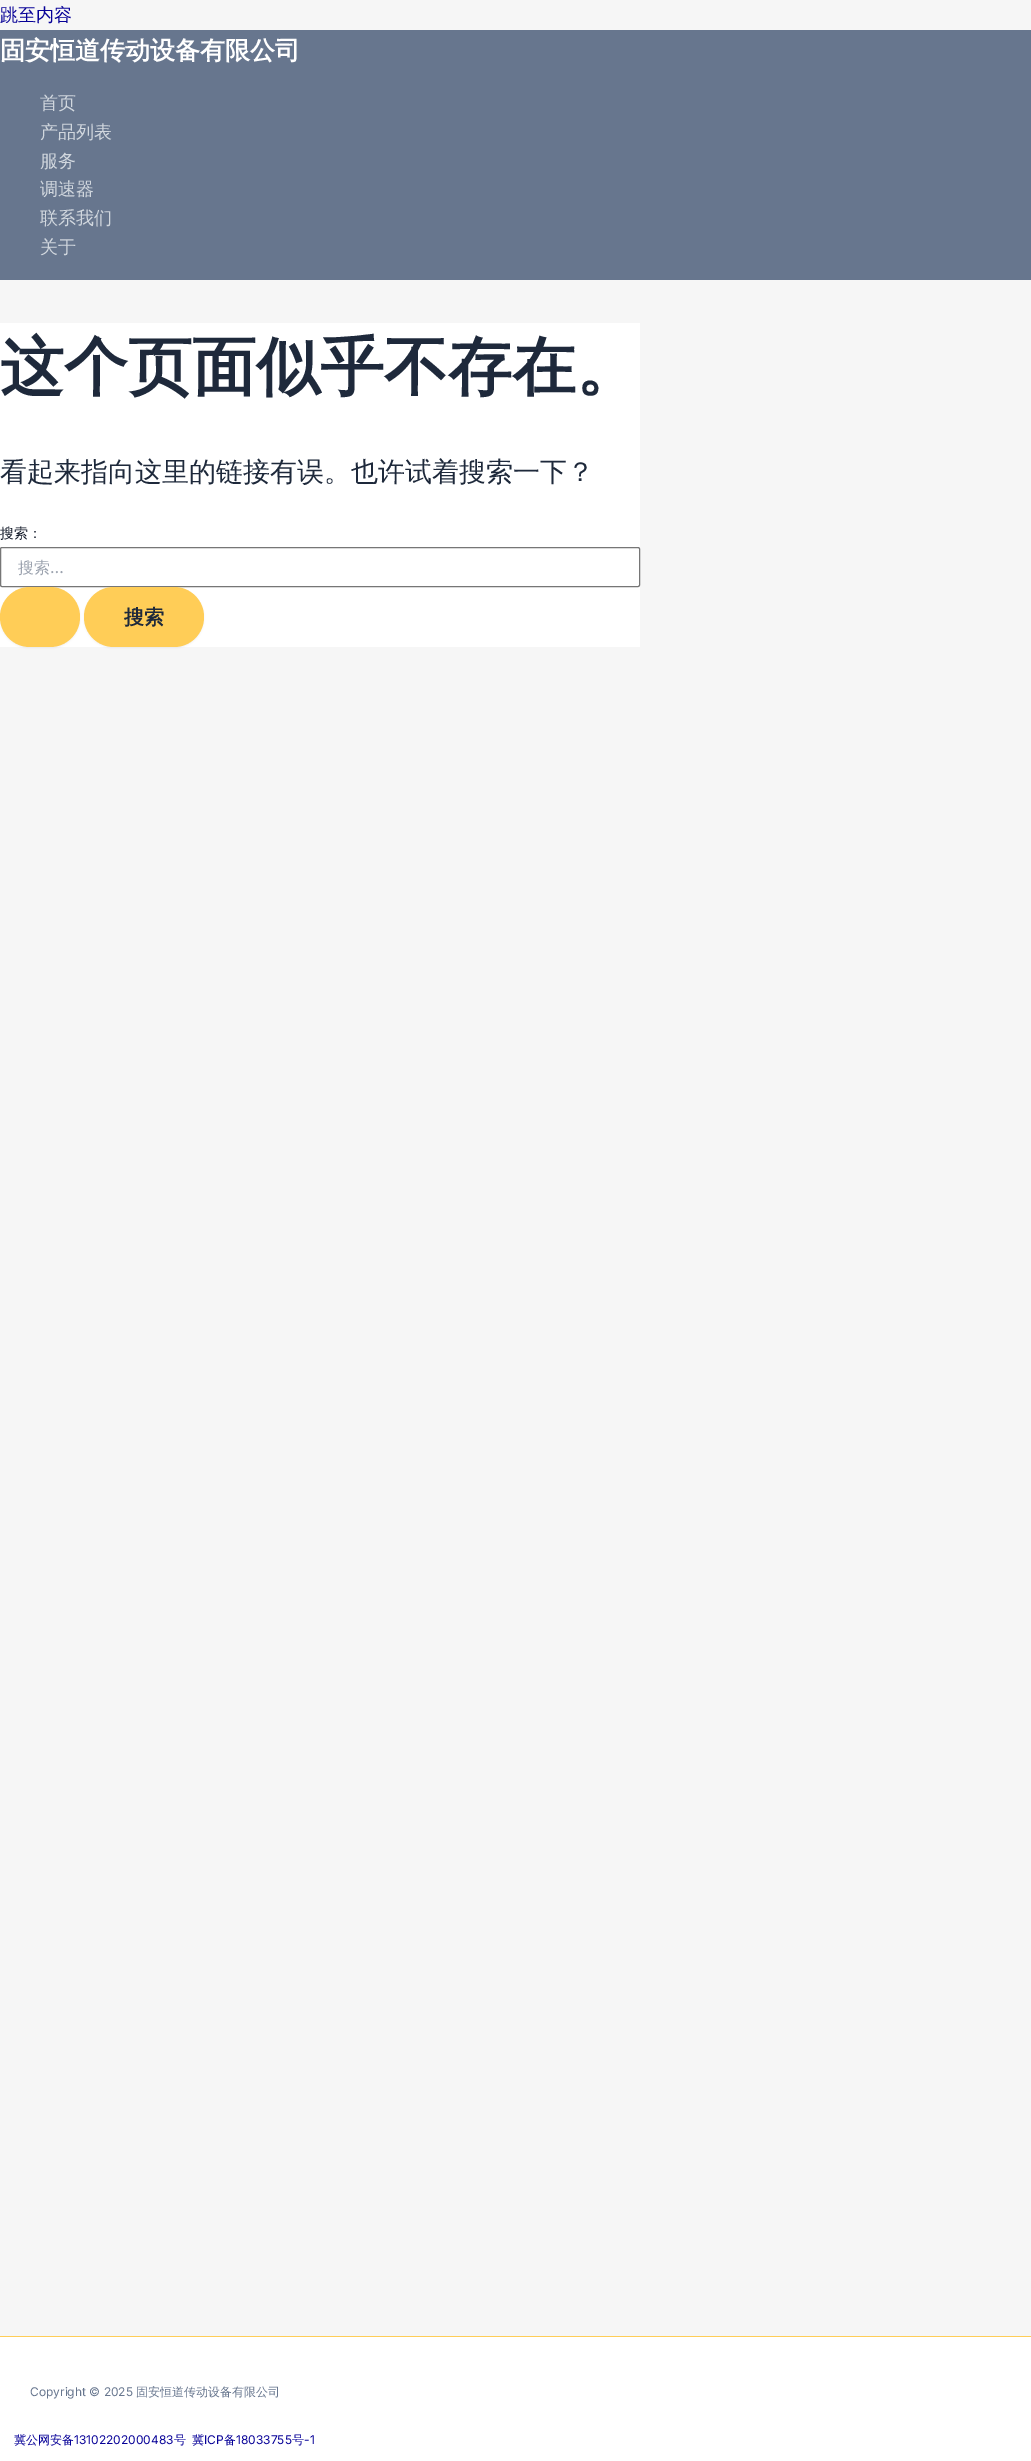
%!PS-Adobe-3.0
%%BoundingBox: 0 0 1031 2461
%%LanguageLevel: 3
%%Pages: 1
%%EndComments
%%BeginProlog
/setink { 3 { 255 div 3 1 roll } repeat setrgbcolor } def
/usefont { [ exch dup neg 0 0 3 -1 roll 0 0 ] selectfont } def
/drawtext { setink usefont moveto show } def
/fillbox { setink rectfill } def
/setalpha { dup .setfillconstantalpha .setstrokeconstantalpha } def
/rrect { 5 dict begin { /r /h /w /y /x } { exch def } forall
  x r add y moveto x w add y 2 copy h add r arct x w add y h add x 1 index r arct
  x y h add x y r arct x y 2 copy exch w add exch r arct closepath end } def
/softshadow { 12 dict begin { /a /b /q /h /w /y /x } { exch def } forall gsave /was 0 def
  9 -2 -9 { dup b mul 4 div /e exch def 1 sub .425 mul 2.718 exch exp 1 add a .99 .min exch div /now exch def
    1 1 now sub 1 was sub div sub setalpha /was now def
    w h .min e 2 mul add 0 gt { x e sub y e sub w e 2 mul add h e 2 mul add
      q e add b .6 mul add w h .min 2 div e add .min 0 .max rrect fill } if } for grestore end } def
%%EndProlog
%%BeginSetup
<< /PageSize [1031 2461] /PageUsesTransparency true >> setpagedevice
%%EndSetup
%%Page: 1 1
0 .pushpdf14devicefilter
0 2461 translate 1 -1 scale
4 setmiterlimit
0 0 1031 2461 246 246 246 fillbox
(跳至内容) 0 21 /WenQuanYiZenHei-Medium 18 6 0 151 drawtext
0 30 1031 250 103 118 142 fillbox
(固安恒道传动设备有限公司) 0 59 /WenQuanYiZenHei-Bold 25 255 255 255 drawtext
(首页) 40 109 /WenQuanYiZenHei-Medium 18 209 215 222 drawtext
(产品列表) 40 138 /WenQuanYiZenHei-Medium 18 209 215 222 drawtext
(服务) 40 167 /WenQuanYiZenHei-Medium 18 209 215 222 drawtext
(调速器) 40 195 /WenQuanYiZenHei-Medium 18 209 215 222 drawtext
(联系我们) 40 224 /WenQuanYiZenHei-Medium 18 209 215 222 drawtext
(关于) 40 253 /WenQuanYiZenHei-Medium 18 209 215 222 drawtext
0 323 640 324 255 255 255 fillbox
(这个页面似乎不存在。) 0 389 /WenQuanYiZenHei-Bold 64 30 41 59 drawtext
(看起来指向这里的链接有误。也许试着搜索一下？) 0 481 /WenQuanYiZenHei-Medium 27 30 41 59 drawtext
(搜索：) 0 538 /WenQuanYiZenHei-Medium 14 17 24 39 drawtext
118 118 118 setink
0.5 547.5 639 39 1.5 rrect stroke
(搜索) 18 573 /WenQuanYiZenHei-Medium 16 156 163 175 drawtext
(…) 50 573 /Inter-Regular 16 156 163 175 drawtext
0 0 0 setink
0 588 80 60 30 1 0.05 softshadow
255 205 87 setink
0 587 80 60 30 rrect fill
0 0 0 setink
84 588 120 60 30 1 0.05 softshadow
255 205 87 setink
84 587 120 60 30 rrect fill
(搜索) 124 624 /WenQuanYiZenHei-Bold 20 30 41 59 drawtext
0 2337 1031 124 255 255 255 fillbox
0 2336 1031 1 255 205 87 fillbox
(Copyright © 2025) 30 2396 /Inter-Regular 12 103 118 142 drawtext
(固安恒道传动设备有限公司) 136 2396 /WenQuanYiZenHei-Medium 12 103 118 142 drawtext
(冀公网安备) 14 2444 /WenQuanYiZenHei-Medium 12 6 0 151 drawtext
(13102202000483) 74 2444 /Inter-Regular 12 6 0 151 drawtext
(号) 174 2444 /WenQuanYiZenHei-Medium 12 6 0 151 drawtext
(冀) 192 2444 /WenQuanYiZenHei-Medium 12 6 0 151 drawtext
(ICP) 204 2444 /Inter-Regular 12 6 0 151 drawtext
(备) 224 2444 /WenQuanYiZenHei-Medium 12 6 0 151 drawtext
(18033755) 236 2444 /Inter-Regular 12 6 0 151 drawtext
(号) 292 2444 /WenQuanYiZenHei-Medium 12 6 0 151 drawtext
(-1) 304 2444 /Inter-Regular 12 6 0 151 drawtext
.poppdf14devicefilter showpage
%%EOF
